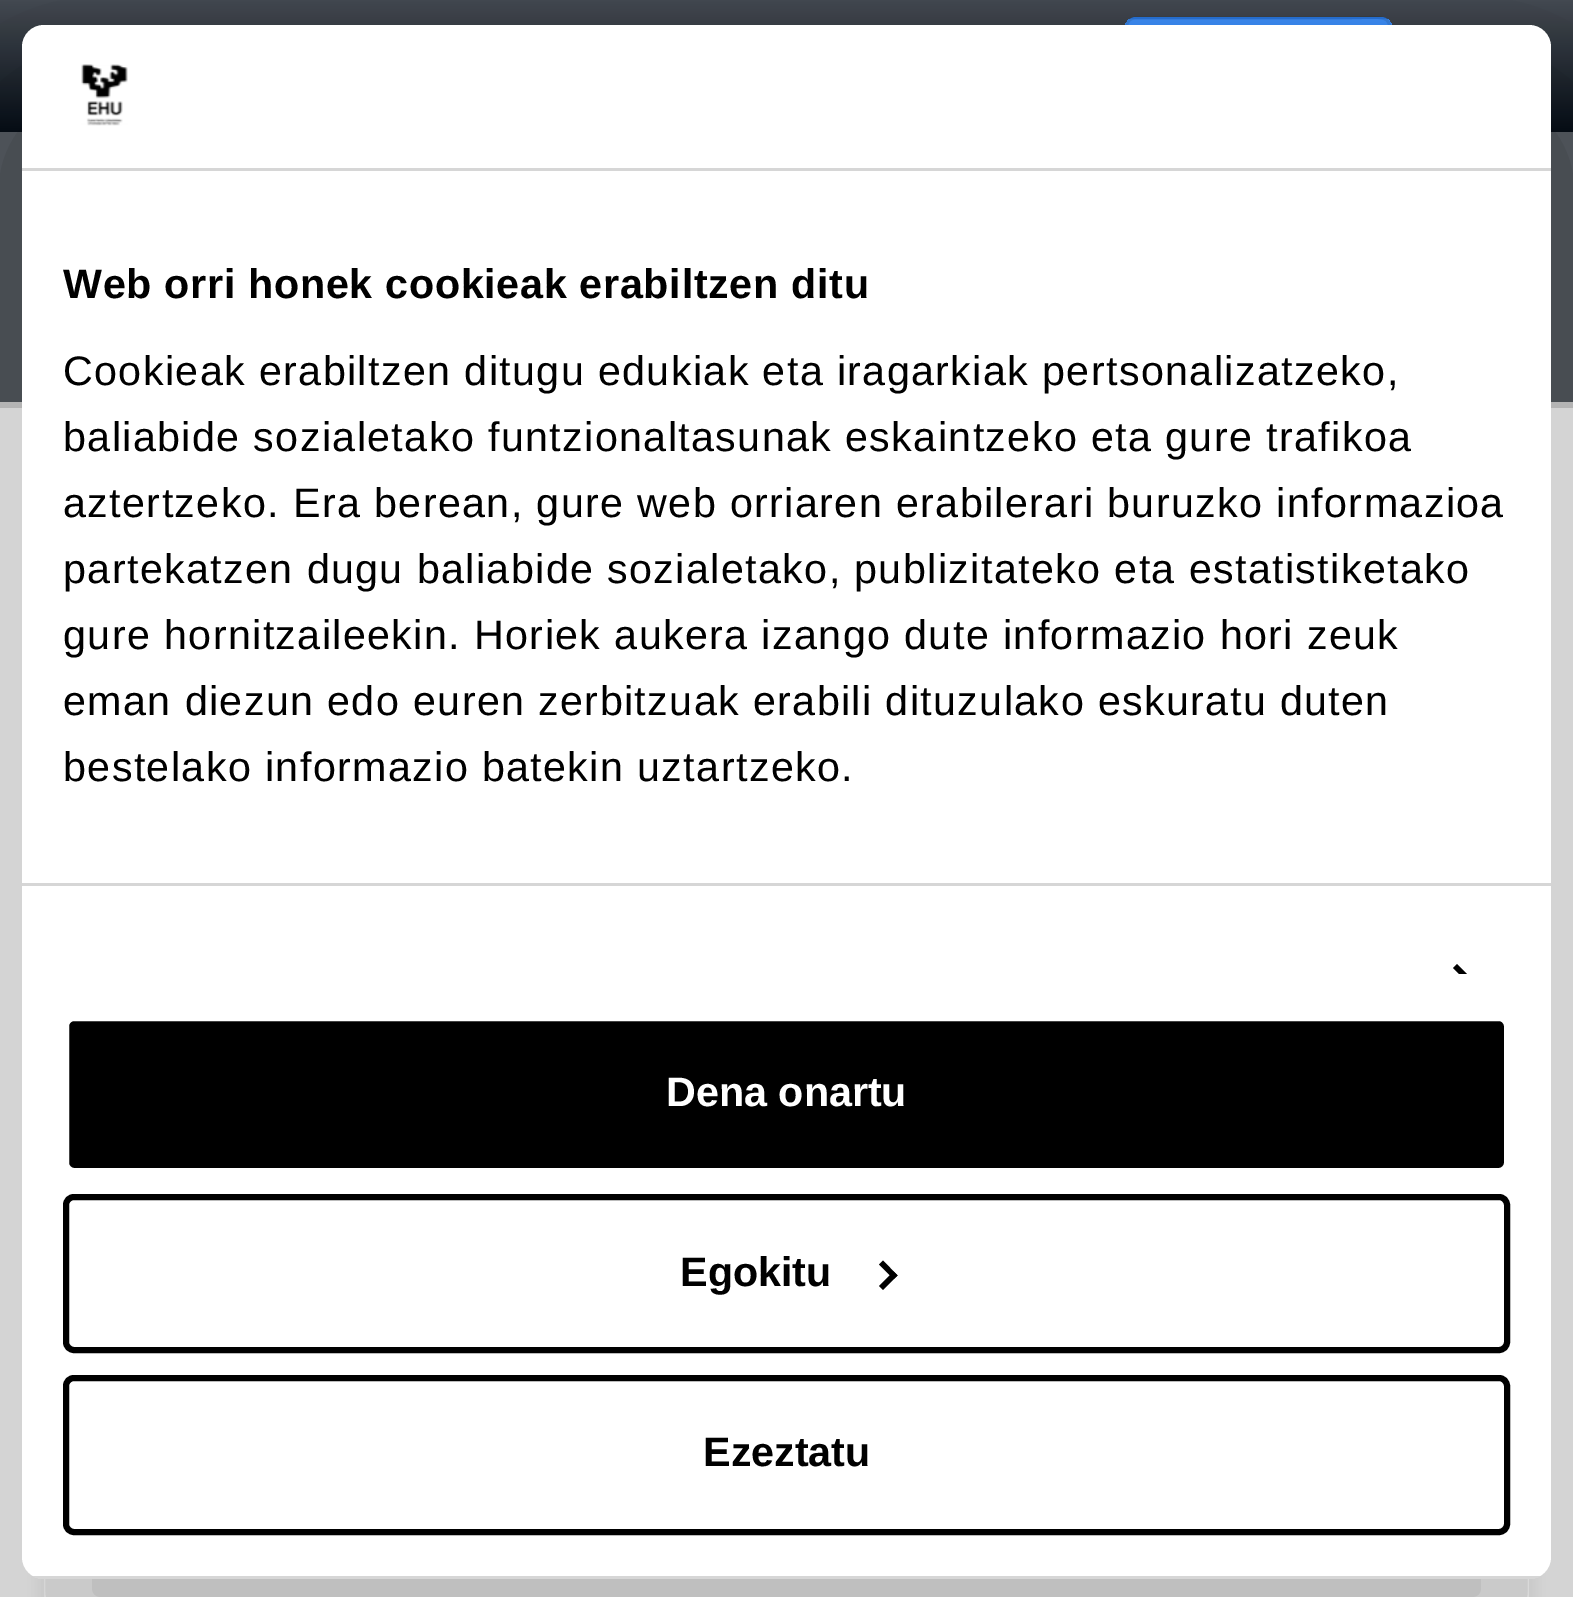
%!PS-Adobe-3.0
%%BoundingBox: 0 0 1573 1597
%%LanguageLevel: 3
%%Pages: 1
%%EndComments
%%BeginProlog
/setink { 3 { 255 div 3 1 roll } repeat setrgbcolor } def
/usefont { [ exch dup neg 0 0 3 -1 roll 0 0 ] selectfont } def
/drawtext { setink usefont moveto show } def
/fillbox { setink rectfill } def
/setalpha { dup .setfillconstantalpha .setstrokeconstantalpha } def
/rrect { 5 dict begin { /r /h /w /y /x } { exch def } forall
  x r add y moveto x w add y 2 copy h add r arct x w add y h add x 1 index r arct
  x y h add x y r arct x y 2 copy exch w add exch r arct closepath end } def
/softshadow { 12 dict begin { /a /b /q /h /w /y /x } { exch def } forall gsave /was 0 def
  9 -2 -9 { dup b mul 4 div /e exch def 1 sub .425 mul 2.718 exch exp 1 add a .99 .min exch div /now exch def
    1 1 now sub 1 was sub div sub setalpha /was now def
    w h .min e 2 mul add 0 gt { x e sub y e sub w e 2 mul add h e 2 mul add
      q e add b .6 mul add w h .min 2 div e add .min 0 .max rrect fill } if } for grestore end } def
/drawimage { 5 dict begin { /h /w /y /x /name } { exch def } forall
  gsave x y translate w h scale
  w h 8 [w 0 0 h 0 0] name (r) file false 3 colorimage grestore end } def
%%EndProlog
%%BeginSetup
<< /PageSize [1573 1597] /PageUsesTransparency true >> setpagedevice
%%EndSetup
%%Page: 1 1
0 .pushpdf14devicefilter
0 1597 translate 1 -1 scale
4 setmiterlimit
0 0 1573 1597 249 249 249 fillbox
gsave 0 0 moveto 1573 0 lineto 1573 132 lineto 0 132 lineto closepath clip newpath
<< /ShadingType 2 /ColorSpace /DeviceRGB /Coords [787 132 787 0] /Extend [true true] /Function << /FunctionType 2 /Domain [0 1] /C0 [0.02 0.051 0.086] /C1 [0.271 0.294 0.325] /N 1 >> >> shfill grestore
42 126 238 setink
1125 17 267 90 11 rrect fill
gsave
1125 17 267 90 11 rrect clip newpath
gsave 1125 19 moveto 1392 19 lineto 1392 25 lineto 1125 25 lineto closepath clip newpath
<< /ShadingType 2 /ColorSpace /DeviceRGB /Coords [1258 19 1258 105] /Extend [true true] /Function << /FunctionType 2 /Domain [0 1] /C0 [0.235 0.545 0.953] /C1 [0.059 0.424 0.906] /N 1 >> >> shfill grestore
grestore
0.1 setalpha
0 0 0 setink
2.8 setlinewidth
1129 103 moveto 1124.5 98.5 1126 90 1126 85 curveto 1126 39 lineto 1126 31.5 1124 18 1136 18 curveto 1339.5 18 lineto 1397.5 18 1390 8.5 1390 62 curveto 1390 85 lineto 1390 90 1392 98.5 1387.5 103 curveto stroke
1 setalpha
0 132 1573 270 85 90 96 fillbox
0 402 1573 6 212 212 212 fillbox
239 239 239 setink
36 729 1501 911 22 7 1 softshadow
44 1579 1485 18 255 255 255 fillbox
239 239 239 setink
3 setlinewidth
42.5 735.5 1488 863 rectstroke
gsave
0 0 moveto 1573 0 lineto 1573 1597 lineto 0 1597 lineto closepath 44 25 moveto 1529 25 lineto 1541 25 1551 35 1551 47 curveto 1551 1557 lineto 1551 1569 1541 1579 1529 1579 curveto 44 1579 lineto 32 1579 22 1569 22 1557 curveto 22 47 lineto 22 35 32 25 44 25 curveto closepath eoclip newpath
0 0 0 setink
22 113 1529 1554 22 93.5 0.3 softshadow
grestore
255 255 255 setink
22 25 1529 1554 22 rrect fill
22 168 1529 3 214 214 214 fillbox
(assets/img1.rgb) 81 64 47 62 drawimage
22 883 1529 3 214 214 214 fillbox
/LiberationSans-Bold 41.25 usefont
0 0 0 setink
63 298 moveto 0.7 0 (Web orri honek cookieak erabiltzen ditu) ashow
/LiberationSans-Regular 41.25 usefont
63 385 moveto 1.38 0 (Cookieak erabiltzen ditugu edukiak eta iragarkiak pertsonalizatzeko,) ashow
63 451 moveto 1.38 0 (baliabide sozialetako funtzionaltasunak eskaintzeko eta gure trafikoa) ashow
63 517 moveto 1.38 0 (aztertzeko. Era berean, gure web orriaren erabilerari buruzko informazioa) ashow
63 583 moveto 1.38 0 (partekatzen dugu baliabide sozialetako, publizitateko eta estatistiketako) ashow
63 649 moveto 1.38 0 (gure hornitzaileekin. Horiek aukera izango dute informazio hori zeuk) ashow
63 715 moveto 1.38 0 (eman diezun edo euren zerbitzuak erabili dituzulako eskuratu duten) ashow
63 781 moveto 1.38 0 (bestelako informazio batekin uztartzeko.) ashow
gsave
22 171 1529 803 rectclip
1457 964 moveto 1473.5 980.5 lineto 1469.5 984 lineto 1453 968 lineto closepath fill
grestore
gsave
22 25 1529 1554 22 rrect clip newpath
33 1576 1507 3 214 214 214 fillbox
grestore
66 1018 1441 153 8 rrect gsave fill grestore
255 255 255 setink
6 setlinewidth
stroke
(Dena onartu) 666 1106 /LiberationSans-Bold 41.25 255 255 255 drawtext
0 0 0 setink
66 1197 1441 153 8 rrect stroke
(Egokitu) 680 1286 /LiberationSans-Bold 41.25 0 0 0 drawtext
883 1260.5 moveto 897.5 1275.5 lineto 893.5 1279 lineto 879 1264.5 lineto closepath fill
893.5 1271.5 moveto 897.5 1275.5 lineto 883 1290 lineto 879 1286 lineto closepath fill
66 1378 1441 154 8 rrect stroke
(Ezeztatu) 703 1466 /LiberationSans-Bold 41.25 0 0 0 drawtext
.poppdf14devicefilter showpage
%%EOF
